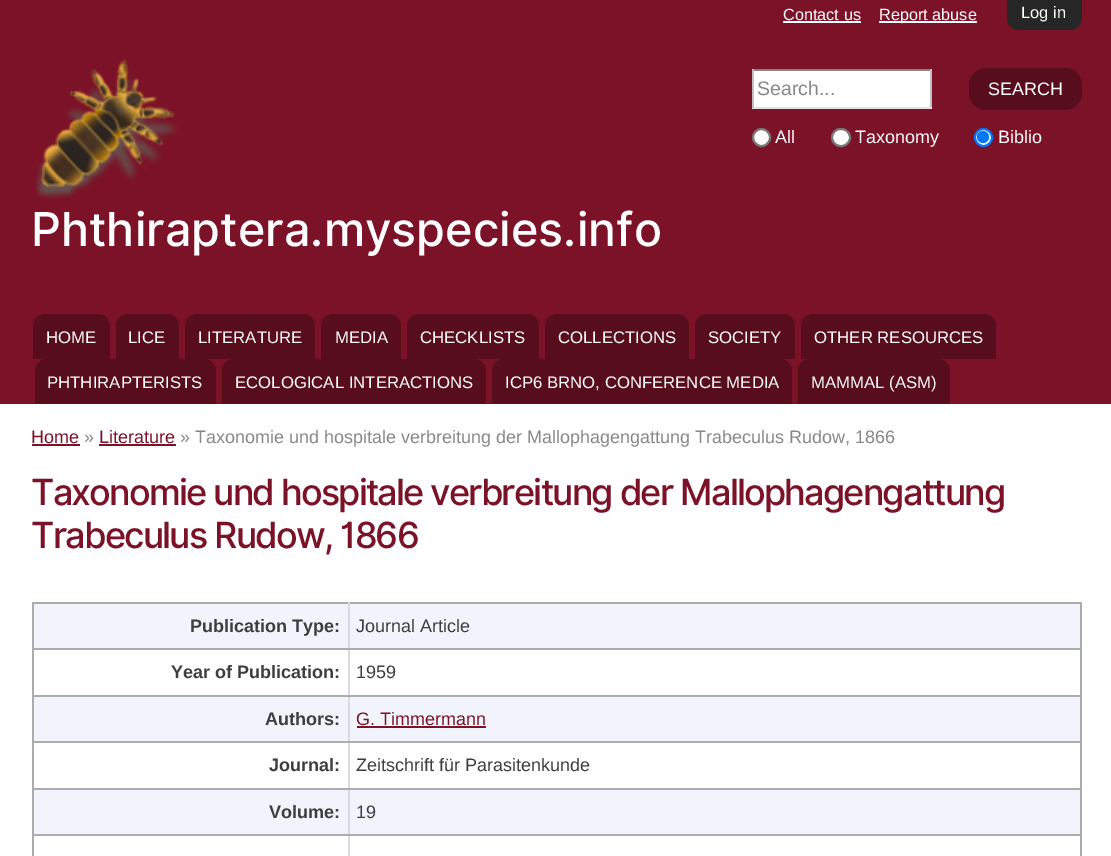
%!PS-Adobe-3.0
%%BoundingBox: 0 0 1111 856
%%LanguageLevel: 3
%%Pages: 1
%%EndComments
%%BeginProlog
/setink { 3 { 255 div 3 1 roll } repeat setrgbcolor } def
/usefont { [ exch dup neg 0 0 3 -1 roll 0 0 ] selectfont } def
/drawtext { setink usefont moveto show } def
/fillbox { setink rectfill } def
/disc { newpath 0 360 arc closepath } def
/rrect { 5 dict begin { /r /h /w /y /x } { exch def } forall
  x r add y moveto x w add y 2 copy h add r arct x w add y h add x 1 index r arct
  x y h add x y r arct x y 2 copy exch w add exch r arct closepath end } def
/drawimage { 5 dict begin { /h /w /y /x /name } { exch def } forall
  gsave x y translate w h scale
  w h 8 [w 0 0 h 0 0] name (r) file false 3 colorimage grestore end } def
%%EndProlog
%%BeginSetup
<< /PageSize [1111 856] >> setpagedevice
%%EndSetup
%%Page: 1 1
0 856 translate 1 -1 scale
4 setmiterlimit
0 0 1111 856 255 255 255 fillbox
0 0 1111 404 124 18 39 fillbox
38 38 38 setink
1007 0 moveto 1082 0 lineto 1082 18 lineto 1082 24.5 1076.5 30 1070 30 curveto 1019 30 lineto 1012.5 30 1007 24.5 1007 18 curveto closepath fill
(Log in) 1021 18 /LiberationSans-Regular 16.5 255 255 255 drawtext
(Contact us) 783 20 /LiberationSans-Regular 16.25 255 255 255 drawtext
783 21 78 2 255 255 255 fillbox
879 21 98 2 255 255 255 fillbox
(Report abuse) 879 20 /LiberationSans-Regular 16.25 255 255 255 drawtext
754 71 176 36 255 255 255 fillbox
752 69 180 2 132 132 132 fillbox
930 69 2 39 193 193 193 fillbox
752 107 180 2 225 225 225 fillbox
752 69 2 39 193 193 193 fillbox
(Search...) 757 95 /LiberationSans-Regular 19.5 136 136 136 drawtext
87 13 27 setink
969 68 113 42 17 rrect fill
(SEARCH) 988 95 /LiberationSans-Regular 18 255 255 255 drawtext
761.5 137.5 8.5 disc gsave fill grestore
118 118 118 setink
2 setlinewidth
stroke
(All) 775 143 /LiberationSans-Regular 18 255 255 255 drawtext
832 129 18 17 8.5 rrect gsave fill grestore
118 118 118 setink
stroke
(Taxonomy) 855 143 /LiberationSans-Regular 18 255 255 255 drawtext
983.5 137.5 8.5 disc gsave fill grestore
0 117 255 setink
stroke
983 137 6 disc fill
(Biblio) 998 143 /LiberationSans-Regular 18 255 255 255 drawtext
(assets/img1.rgb) 35 59 143 140 drawimage
(Phthiraptera.myspecies.info) 31 246 /Inter-Medium 46.75 255 255 255 drawtext
87 13 27 setink
45 314 moveto 98 314 lineto 104.5 314 110 319.5 110 326 curveto 110 359 lineto 33 359 lineto 33 326 lineto 33 319.5 38.5 314 45 314 curveto closepath fill
(HOME) 46 343 /LiberationSans-Regular 16.75 255 255 255 drawtext
87 13 27 setink
128 314 moveto 167 314 lineto 173.5 314 179 319.5 179 326 curveto 179 359 lineto 116 359 lineto 116 326 lineto 116 319.5 121.5 314 128 314 curveto closepath fill
(LICE) 128 343 /LiberationSans-Regular 16.75 255 255 255 drawtext
87 13 27 setink
197 314 moveto 303 314 lineto 309.5 314 315 319.5 315 326 curveto 315 359 lineto 185 359 lineto 185 326 lineto 185 319.5 190.5 314 197 314 curveto closepath fill
(LITERATURE) 198 343 /LiberationSans-Regular 16.75 255 255 255 drawtext
87 13 27 setink
333 314 moveto 389 314 lineto 395.5 314 401 319.5 401 326 curveto 401 359 lineto 321 359 lineto 321 326 lineto 321 319.5 326.5 314 333 314 curveto closepath fill
(MEDIA) 335 343 /LiberationSans-Regular 16.75 255 255 255 drawtext
87 13 27 setink
419 314 moveto 527 314 lineto 533.5 314 539 319.5 539 326 curveto 539 359 lineto 407 359 lineto 407 326 lineto 407 319.5 412.5 314 419 314 curveto closepath fill
(CHECKLISTS) 420 343 /LiberationSans-Regular 16.75 255 255 255 drawtext
87 13 27 setink
557 314 moveto 677 314 lineto 683.5 314 689 319.5 689 326 curveto 689 359 lineto 545 359 lineto 545 326 lineto 545 319.5 550.5 314 557 314 curveto closepath fill
(COLLECTIONS) 558 343 /LiberationSans-Regular 16.75 255 255 255 drawtext
87 13 27 setink
707 314 moveto 783 314 lineto 789.5 314 795 319.5 795 326 curveto 795 359 lineto 695 359 lineto 695 326 lineto 695 319.5 700.5 314 707 314 curveto closepath fill
(SOCIETY) 708 343 /LiberationSans-Regular 16.75 255 255 255 drawtext
87 13 27 setink
813 314 moveto 984 314 lineto 990.5 314 996 319.5 996 326 curveto 996 359 lineto 801 359 lineto 801 326 lineto 801 319.5 806.5 314 813 314 curveto closepath fill
(OTHER RESOURCES) 814 343 /LiberationSans-Regular 16.75 255 255 255 drawtext
87 13 27 setink
47 359 moveto 204 359 lineto 210.5 359 216 364.5 216 371 curveto 216 404 lineto 35 404 lineto 35 371 lineto 35 364.5 40.5 359 47 359 curveto closepath fill
(PHTHIRAPTERISTS) 47 388 /LiberationSans-Regular 16.75 255 255 255 drawtext
87 13 27 setink
234 359 moveto 474 359 lineto 480.5 359 486 364.5 486 371 curveto 486 404 lineto 222 404 lineto 222 371 lineto 222 364.5 227.5 359 234 359 curveto closepath fill
(ECOLOGICAL INTERACTIONS) 235 388 /LiberationSans-Regular 16.75 255 255 255 drawtext
87 13 27 setink
504 359 moveto 780 359 lineto 786.5 359 792 364.5 792 371 curveto 792 404 lineto 492 404 lineto 492 371 lineto 492 364.5 497.5 359 504 359 curveto closepath fill
(ICP6 BRNO, CONFERENCE MEDIA) 505 388 /LiberationSans-Regular 16.75 255 255 255 drawtext
87 13 27 setink
810 359 moveto 938 359 lineto 944.5 359 950 364.5 950 371 curveto 950 404 lineto 798 404 lineto 798 371 lineto 798 364.5 803.5 359 810 359 curveto closepath fill
(MAMMAL \(ASM\)) 811 388 /LiberationSans-Regular 16.75 255 255 255 drawtext
(Home) 31 443 /LiberationSans-Regular 18 124 18 39 drawtext
32 444 48 2 124 18 39 fillbox
(») 84 443 /LiberationSans-Regular 18 136 136 136 drawtext
(Literature) 99 443 /LiberationSans-Regular 18 124 18 39 drawtext
99 444 77 2 124 18 39 fillbox
(» Taxonomie und hospitale verbreitung der Mallophagengattung Trabeculus Rudow, 1866) 180 443 /LiberationSans-Regular 18 136 136 136 drawtext
/Inter-Medium 36 usefont
124 18 39 setink
31 505 moveto -1.8 0 (Taxonomie und hospitale verbreitung der Mallophagengattung) ashow
31 548 moveto -1.8 0 (Trabeculus Rudow, 1866) ashow
34 604 1046 44 241 244 251 fillbox
32 602 1050 2 172 172 172 fillbox
1080 648 2 208 172 172 172 fillbox
1080 602 2 48 172 172 172 fillbox
34 697 1046 44 241 244 251 fillbox
348 834 2 22 217 218 221 fillbox
34 790 1046 44 241 244 251 fillbox
348 834 734 2 172 172 172 fillbox
348 788 2 48 217 218 221 fillbox
348 788 734 2 172 172 172 fillbox
348 741 2 48 217 218 221 fillbox
348 741 734 2 172 172 172 fillbox
348 695 2 48 217 218 221 fillbox
348 695 734 2 172 172 172 fillbox
348 648 2 48 217 218 221 fillbox
348 648 734 2 172 172 172 fillbox
348 602 2 48 217 218 221 fillbox
32 834 2 22 172 172 172 fillbox
32 834 318 2 172 172 172 fillbox
32 788 2 48 172 172 172 fillbox
32 788 318 2 172 172 172 fillbox
32 741 2 48 172 172 172 fillbox
32 741 318 2 172 172 172 fillbox
32 695 2 48 172 172 172 fillbox
32 695 318 2 172 172 172 fillbox
32 648 2 48 172 172 172 fillbox
32 648 318 2 172 172 172 fillbox
32 602 2 48 172 172 172 fillbox
(Publication Type:) 190 632 /LiberationSans-Bold 18 62 62 62 drawtext
(Journal Article) 356 632 /LiberationSans-Regular 18 62 62 62 drawtext
(Year of Publication:) 171 678 /LiberationSans-Bold 18 62 62 62 drawtext
(1959) 356 678 /LiberationSans-Regular 18 62 62 62 drawtext
(Authors:) 265 725 /LiberationSans-Bold 18 62 62 62 drawtext
(G. Timmermann) 356 725 /LiberationSans-Regular 18 124 18 39 drawtext
357 726 129 2 124 18 39 fillbox
(Journal:) 269 771 /LiberationSans-Bold 18 62 62 62 drawtext
(Zeitschrift für Parasitenkunde) 356 771 /LiberationSans-Regular 18 62 62 62 drawtext
(Volume:) 269 818 /LiberationSans-Bold 18 62 62 62 drawtext
(19) 356 818 /LiberationSans-Regular 18 62 62 62 drawtext
showpage
%%EOF
